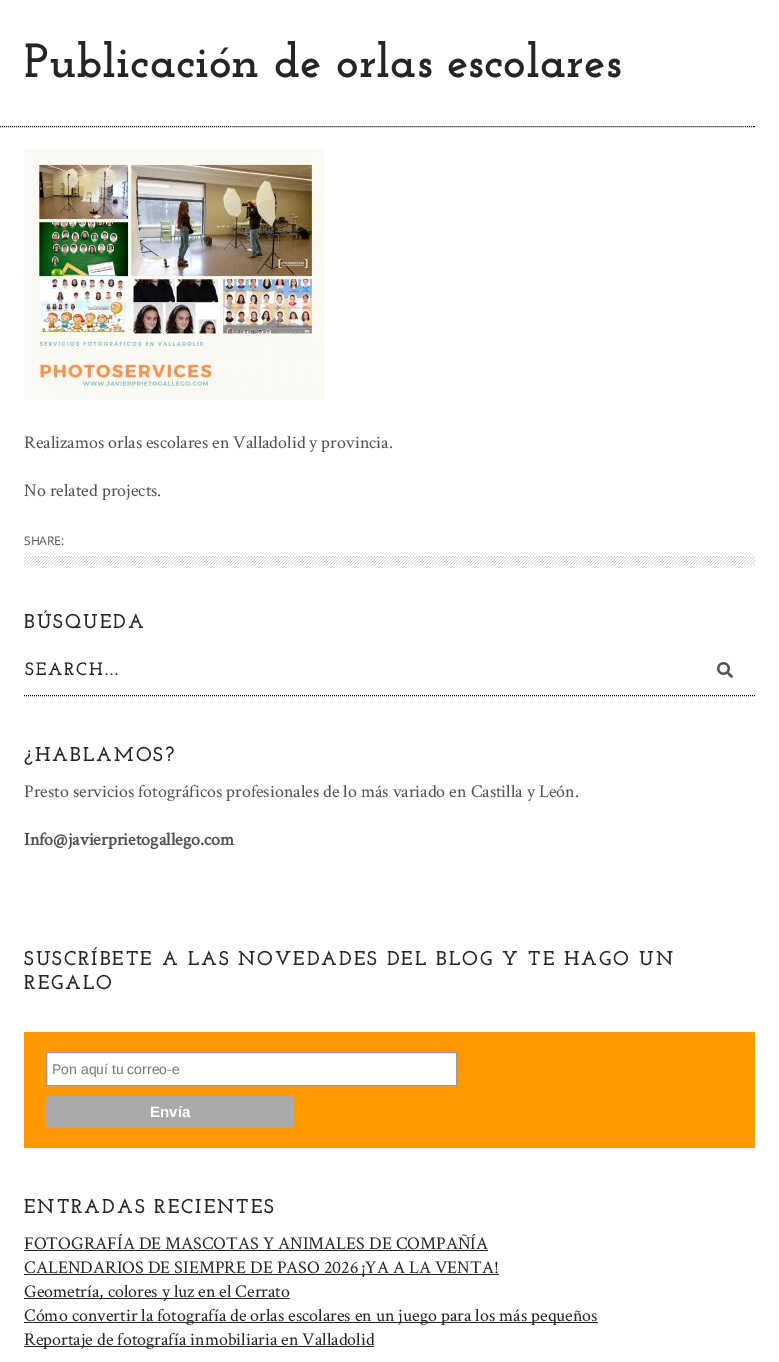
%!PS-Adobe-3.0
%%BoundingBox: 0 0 779 1362
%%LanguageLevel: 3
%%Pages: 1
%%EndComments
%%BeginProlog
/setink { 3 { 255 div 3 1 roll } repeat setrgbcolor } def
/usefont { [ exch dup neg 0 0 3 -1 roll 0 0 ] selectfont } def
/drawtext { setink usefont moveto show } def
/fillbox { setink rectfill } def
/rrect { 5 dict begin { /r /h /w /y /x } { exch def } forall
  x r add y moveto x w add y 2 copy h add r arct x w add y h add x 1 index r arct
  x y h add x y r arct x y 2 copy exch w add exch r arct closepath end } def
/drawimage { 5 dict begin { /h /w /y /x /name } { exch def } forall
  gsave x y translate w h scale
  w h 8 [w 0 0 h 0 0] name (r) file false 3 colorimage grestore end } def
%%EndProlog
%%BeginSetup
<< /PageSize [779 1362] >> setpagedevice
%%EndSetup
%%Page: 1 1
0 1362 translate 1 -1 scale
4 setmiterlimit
0 0 779 1362 255 255 255 fillbox
(Publicación de orlas escolares) 24 77 /JosefinSlab-Bold 48 38 37 38 drawtext
36 36 35 setink
[1 1] 0 setdash
-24 126.5 moveto 755 126.5 lineto stroke
(assets/img1.rgb) 24 149 300 251 drawimage
(Realizamos orlas escolares en Valladolid y provincia.) 24 448 /CrimsonText-Regular 18 81 81 80 drawtext
(No related projects.) 24 496 /CrimsonText-Regular 18 81 81 80 drawtext
(SHARE:) 24 545 /OpenSans-Regular 12 81 81 80 drawtext
(assets/img2.rgb) 24 556 731 9 drawimage
/JosefinSlab-Bold 20 usefont
38 37 38 setink
24 628 moveto 2 0 (BÚSQUEDA) ashow
0 0 0 setink
24 695.5 moveto 755 695.5 lineto stroke
/JosefinSlab-Bold 18 usefont
38 37 38 setink
25 675 moveto 2 0 (SEARCH...) ashow
(assets/img3.rgb) 717 662 16 16 drawimage
/JosefinSlab-Bold 20 usefont
24 761 moveto 2 0 (¿HABLAMOS?) ashow
(Presto servicios fotográficos profesionales de lo más variado en Castilla y León.) 24 797 /CrimsonText-Regular 18 81 81 80 drawtext
(Info@javierprietogallego.com) 24 845 /CrimsonText-Bold 18 81 81 80 drawtext
/JosefinSlab-Bold 20 usefont
38 37 38 setink
24 965 moveto 2 0 (SUSCRÍBETE A LAS NOVEDADES DEL BLOG Y TE HAGO UN) ashow
24 989 moveto 2 0 (REGALO) ashow
24 1032 731 116 255 153 0 fillbox
255 255 255 setink
46.5 1052.5 moveto 456.5 1052.5 lineto 456.5 1085.5 lineto 46.5 1085.5 lineto closepath gsave fill grestore
153 153 153 setink
[] 0 setdash
stroke
(Pon aquí tu correo-e) 52 1074 /LiberationSans-Regular 14 117 117 117 drawtext
170 170 170 setink
46 1096 248 32 4 rrect fill
(Envía) 150 1117 /LiberationSans-Bold 15 255 255 255 drawtext
/JosefinSlab-Bold 20 usefont
38 37 38 setink
24 1213 moveto 2 0 (ENTRADAS RECIENTES) ashow
(FOTOGRAFÍA DE MASCOTAS Y ANIMALES DE COMPAÑÍA) 24 1249 /CrimsonText-Regular 18 38 37 38 drawtext
24 1250 464 1 36 36 35 fillbox
24 1274 475 1 36 36 35 fillbox
(CALENDARIOS DE SIEMPRE DE PASO 2026 ¡YA A LA VENTA!) 24 1273 /CrimsonText-Regular 18 38 37 38 drawtext
24 1298 266 1 36 36 35 fillbox
(Geometría, colores y luz en el Cerrato) 24 1297 /CrimsonText-Regular 18 38 37 38 drawtext
24 1322 574 1 36 36 35 fillbox
(Cómo convertir la fotografía de orlas escolares en un juego para los más pequeños) 24 1321 /CrimsonText-Regular 18 38 37 38 drawtext
24 1346 350 1 36 36 35 fillbox
(Reportaje de fotografía inmobiliaria en Valladolid) 24 1345 /CrimsonText-Regular 18 38 37 38 drawtext
showpage
%%EOF
